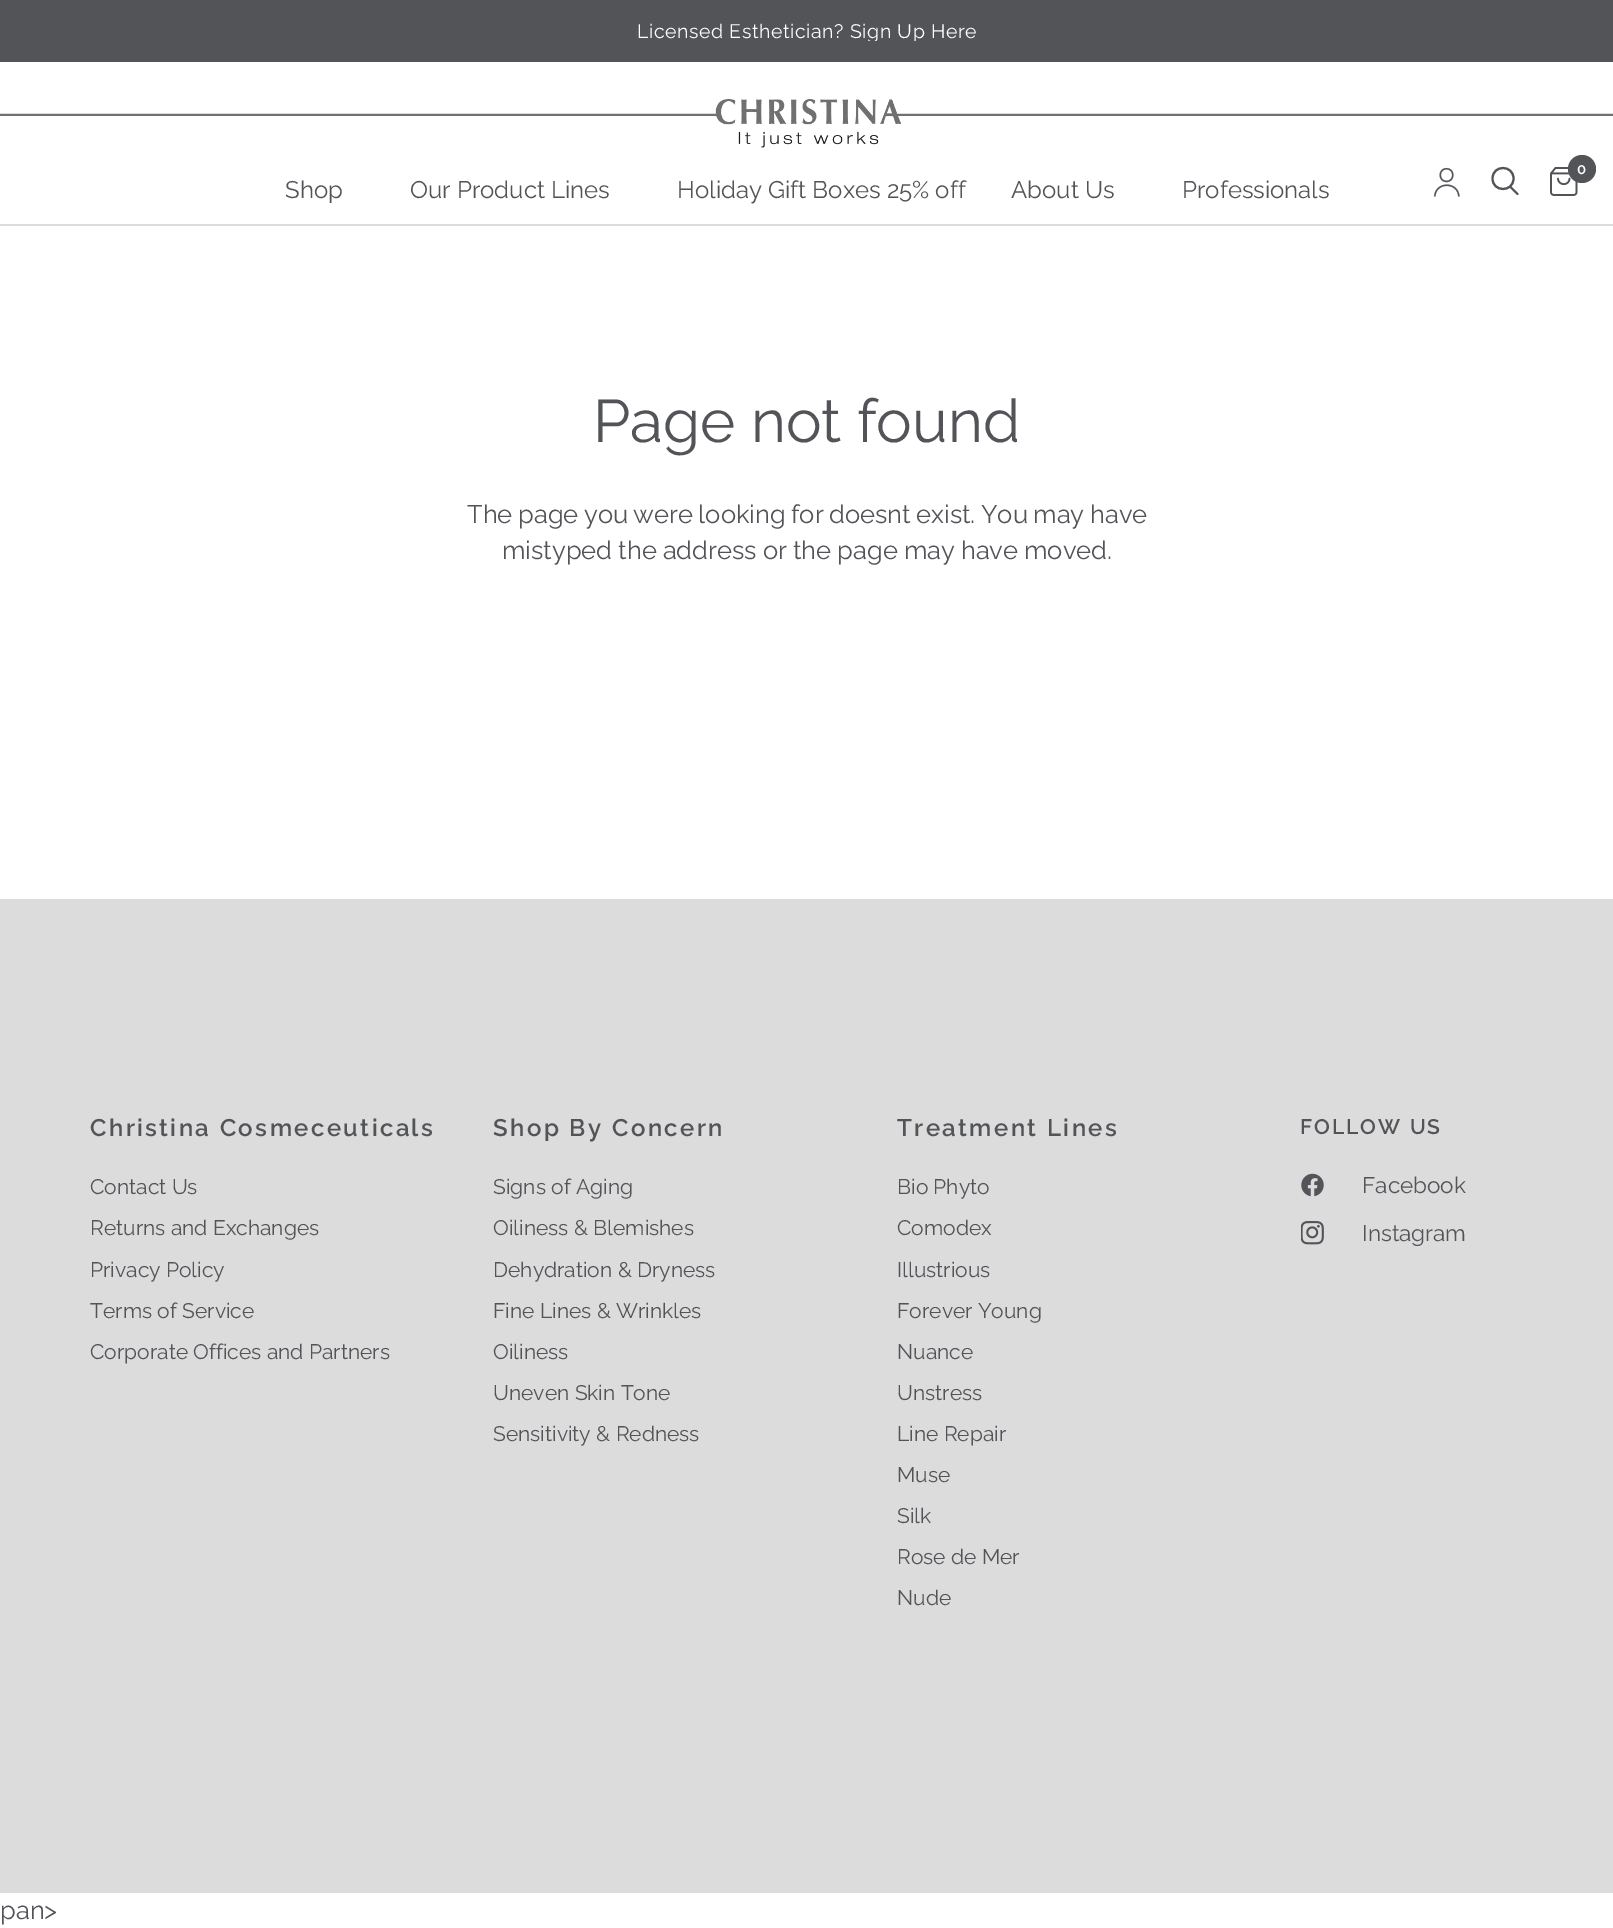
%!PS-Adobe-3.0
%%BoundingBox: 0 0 1613 1928
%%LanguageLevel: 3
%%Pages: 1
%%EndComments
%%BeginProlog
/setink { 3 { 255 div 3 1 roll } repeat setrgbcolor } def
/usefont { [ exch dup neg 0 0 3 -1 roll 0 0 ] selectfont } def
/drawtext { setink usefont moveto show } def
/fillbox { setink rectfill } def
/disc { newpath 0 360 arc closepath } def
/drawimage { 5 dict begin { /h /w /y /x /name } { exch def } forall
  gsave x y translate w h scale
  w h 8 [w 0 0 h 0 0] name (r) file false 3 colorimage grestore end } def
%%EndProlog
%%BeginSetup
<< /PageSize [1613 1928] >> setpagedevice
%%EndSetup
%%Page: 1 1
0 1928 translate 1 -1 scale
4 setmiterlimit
0 0 1613 1928 255 255 255 fillbox
0 0 1613 62 83 84 88 fillbox
gsave
432 21 750 20 rectclip
/Raleway-Thin 19.5 usefont
255 255 255 setink
637 38 moveto 0.6 0 (Licensed Esthetician? Sign Up Here) ashow
grestore
0 224 1613 2 220 220 220 fillbox
(assets/img1.rgb) 0 99 1613 49 drawimage
(assets/img2.rgb) 1433 167 27 30 drawimage
83 84 88 setink
2.1 setlinewidth
1 setlinecap
1 setlinejoin
1510.5 187 moveto 1517.5 194 lineto 1513.5 178.5 moveto 1513.5 192.5 1492.5 192.5 1492.5 178.5 curveto 1492.5 164.5 1513.5 164.5 1513.5 178.5 curveto closepath stroke
(assets/img3.rgb) 1550 167 28 29 drawimage
1582 169 14 disc fill
(0) 1577 174 /Raleway-SemiBold 15 255 255 255 drawtext
(Shop) 285 198 /Raleway-Thin 24 83 84 88 drawtext
(Our Product Lines) 410 198 /Raleway-Thin 24 83 84 88 drawtext
(Holiday Gift Boxes 25% off) 677 198 /Raleway-Thin 24 83 84 88 drawtext
(About Us) 1011 198 /Raleway-Thin 24 83 84 88 drawtext
(Professionals) 1182 198 /Raleway-Thin 24 83 84 88 drawtext
(Page not found) 593 442 /Raleway-Thin 60 83 84 88 drawtext
/Raleway-Thin 25.5 usefont
467 523 moveto -1 0 32 (The page you were looking for doesnt exist. You may have) widthshow
502 559 moveto -0.5 0 32 (mistyped the address or the page may have moved.) widthshow
0 899 1613 994 220 220 220 fillbox
/Raleway-SemiBold 24 usefont
83 84 88 setink
90 1136 moveto 2.4 0 (Christina Cosmeceuticals) ashow
(Contact Us) 90 1194 /Raleway-Thin 21 83 84 88 drawtext
(Returns and Exchanges) 90 1235 /Raleway-Thin 21 83 84 88 drawtext
(Privacy Policy) 90 1277 /Raleway-Thin 21 83 84 88 drawtext
(Terms of Service) 90 1318 /Raleway-Thin 21 83 84 88 drawtext
(Corporate Offices and Partners) 90 1359 /Raleway-Thin 21 83 84 88 drawtext
/Raleway-SemiBold 24 usefont
493 1136 moveto 2.4 0 (Shop By Concern) ashow
(Signs of Aging) 493 1194 /Raleway-Thin 21 83 84 88 drawtext
(Oiliness & Blemishes) 493 1235 /Raleway-Thin 21 83 84 88 drawtext
(Dehydration & Dryness) 493 1277 /Raleway-Thin 21 83 84 88 drawtext
(Fine Lines & Wrinkles) 493 1318 /Raleway-Thin 21 83 84 88 drawtext
(Oiliness) 493 1359 /Raleway-Thin 21 83 84 88 drawtext
(Uneven Skin Tone) 493 1400 /Raleway-Thin 21 83 84 88 drawtext
(Sensitivity & Redness) 493 1441 /Raleway-Thin 21 83 84 88 drawtext
/Raleway-SemiBold 24 usefont
897 1136 moveto 2.4 0 (Treatment Lines) ashow
(Bio Phyto) 897 1194 /Raleway-Thin 21 83 84 88 drawtext
(Comodex) 897 1235 /Raleway-Thin 21 83 84 88 drawtext
(Illustrious) 897 1277 /Raleway-Thin 21 83 84 88 drawtext
(Forever Young) 897 1318 /Raleway-Thin 21 83 84 88 drawtext
(Nuance) 897 1359 /Raleway-Thin 21 83 84 88 drawtext
(Unstress) 897 1400 /Raleway-Thin 21 83 84 88 drawtext
(Line Repair) 897 1441 /Raleway-Thin 21 83 84 88 drawtext
(Muse) 897 1482 /Raleway-Thin 21 83 84 88 drawtext
(Silk) 897 1523 /Raleway-Thin 21 83 84 88 drawtext
(Rose de Mer) 897 1564 /Raleway-Thin 21 83 84 88 drawtext
(Nude) 897 1605 /Raleway-Thin 21 83 84 88 drawtext
/Raleway-SemiBold 21 usefont
1300 1134 moveto 2 0 (FOLLOW US) ashow
(assets/img4.rgb) 1301 1173 23 24 drawimage
(Facebook) 1362 1193 /Raleway-Thin 22.5 83 84 88 drawtext
(assets/img5.rgb) 1301 1221 23 24 drawimage
(Instagram) 1362 1241 /Raleway-Thin 22.5 83 84 88 drawtext
(pan>) 0 1919 /Raleway-Thin 25.5 83 84 88 drawtext
showpage
%%EOF
